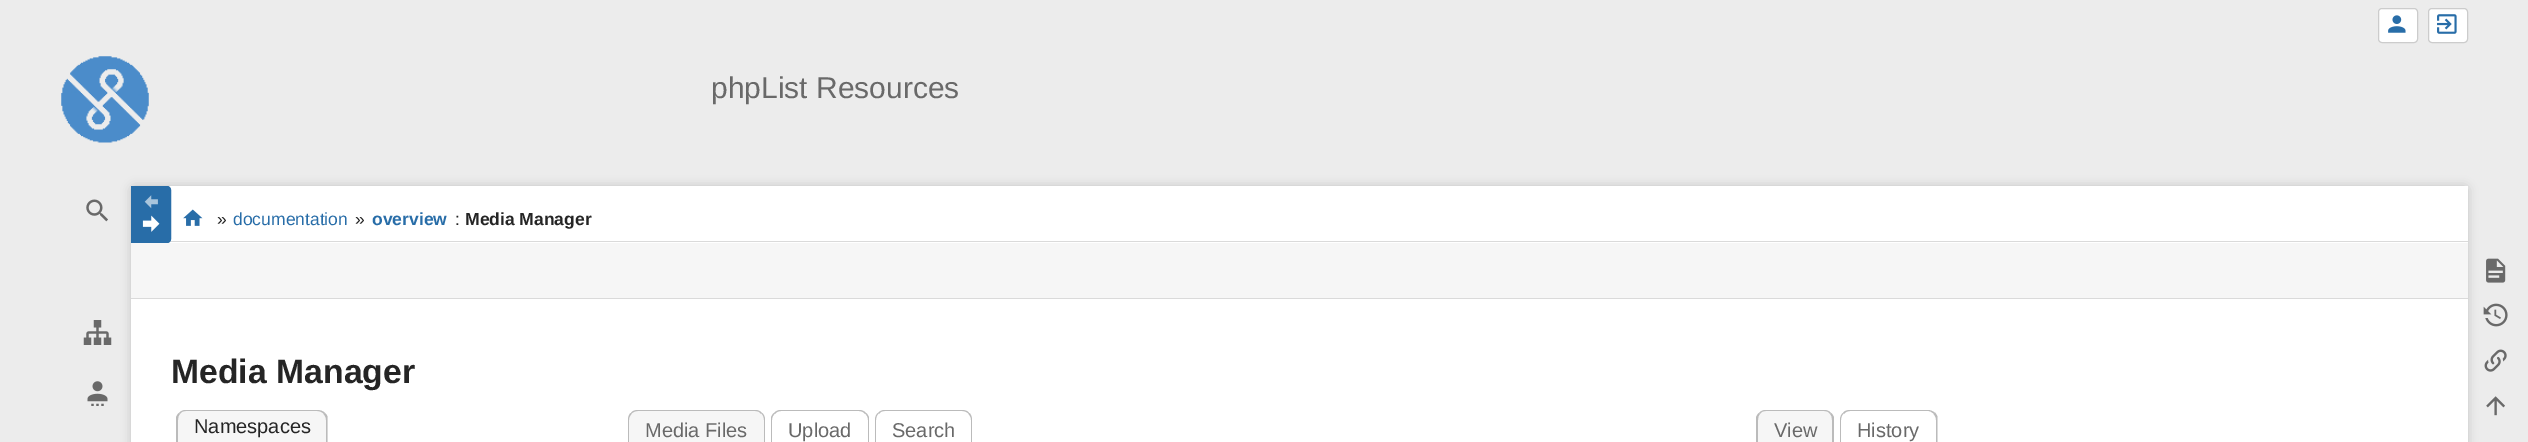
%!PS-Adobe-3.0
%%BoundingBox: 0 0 2528 442
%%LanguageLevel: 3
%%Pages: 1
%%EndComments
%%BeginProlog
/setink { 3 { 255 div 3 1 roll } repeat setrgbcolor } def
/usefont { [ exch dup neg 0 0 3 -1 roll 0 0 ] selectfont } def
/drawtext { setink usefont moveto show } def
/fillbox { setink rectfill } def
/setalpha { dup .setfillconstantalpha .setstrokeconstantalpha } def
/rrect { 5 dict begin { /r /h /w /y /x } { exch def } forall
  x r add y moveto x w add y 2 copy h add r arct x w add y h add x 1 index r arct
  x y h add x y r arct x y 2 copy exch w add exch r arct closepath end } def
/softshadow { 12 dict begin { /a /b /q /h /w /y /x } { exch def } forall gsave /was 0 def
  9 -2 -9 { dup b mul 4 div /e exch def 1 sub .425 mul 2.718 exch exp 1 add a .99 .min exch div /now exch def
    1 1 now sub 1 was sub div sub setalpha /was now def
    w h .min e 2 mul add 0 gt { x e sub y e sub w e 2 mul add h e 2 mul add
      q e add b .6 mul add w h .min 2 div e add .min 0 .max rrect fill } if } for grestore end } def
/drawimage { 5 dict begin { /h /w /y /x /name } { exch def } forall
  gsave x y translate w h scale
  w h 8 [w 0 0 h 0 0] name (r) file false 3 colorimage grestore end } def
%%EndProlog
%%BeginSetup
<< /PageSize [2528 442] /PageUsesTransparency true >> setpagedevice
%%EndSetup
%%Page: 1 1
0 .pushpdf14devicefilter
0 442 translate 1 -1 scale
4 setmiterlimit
0 0 2528 442 236 236 236 fillbox
255 255 255 setink
2378.5 8.5 39 34 3.5 rrect gsave fill grestore
204 204 204 setink
stroke
(assets/img1.rgb) 2388 15 18 18 drawimage
255 255 255 setink
2428.5 8.5 39 34 3.5 rrect gsave fill grestore
204 204 204 setink
stroke
(assets/img2.rgb) 2437 14 20 20 drawimage
(assets/img3.rgb) 61 56 88 87 drawimage
(phpList Resources) 711 98 /LiberationSans-Regular 30 105 105 105 drawtext
(assets/img4.rgb) 86 199 22 23 drawimage
(assets/img5.rgb) 83 320 29 25 drawimage
(assets/img6.rgb) 87 381 21 25 drawimage
153 153 153 setink
131 186 2337 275 4 5 0.5 softshadow
131 299 2337 143 255 255 255 fillbox
167 186 2301 57 255 255 255 fillbox
169 241 2299 1 218 218 218 fillbox
40 109 168 setink
131.5 186.5 moveto 167 186.5 lineto 169 186.5 170.5 188 170.5 190 curveto 170.5 239 lineto 170.5 241 169 242.5 167 242.5 curveto 131.5 242.5 lineto closepath gsave fill grestore
stroke
(assets/img7.rgb) 144 195 14 14 drawimage
(assets/img8.rgb) 142 215 18 17 drawimage
(assets/img9.rgb) 183 209 20 17 drawimage
(») 217 225 /LiberationSans-Regular 17.5 37 37 37 drawtext
(documentation) 233 225 /LiberationSans-Regular 17.5 40 109 168 drawtext
(») 355 225 /LiberationSans-Regular 17.5 37 37 37 drawtext
(overview) 372 225 /LiberationSans-Bold 17.5 40 109 168 drawtext
(:) 455 225 /LiberationSans-Regular 17.5 37 37 37 drawtext
(Media Manager) 465 225 /LiberationSans-Bold 17.5 37 37 37 drawtext
(assets/img10.rgb) 2486 258 20 25 drawimage
(assets/img11.rgb) 2483 303 25 24 drawimage
(assets/img12.rgb) 2484 349 23 23 drawimage
(assets/img13.rgb) 2486 396 19 20 drawimage
131 243 2337 55 246 246 246 fillbox
131 298 2337 1 218 218 218 fillbox
(Media Manager) 171 383 /LiberationSans-Bold 33.75 37 37 37 drawtext
246 246 246 setink
186 410 moveto 318 410 lineto 323.5 410 328 414.5 328 420 curveto 328 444 lineto 176 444 lineto 176 420 lineto 176 414.5 180.5 410 186 410 curveto closepath fill
187 187 187 setink
186 410 moveto 183 410 181 411 179 413 curveto 180 414 lineto 181 412 183 411 186 411 curveto 317 411 lineto 320 411 322 412 324 414 curveto 325 413 lineto 323 411 320 410 317 410 curveto closepath fill
325 413 moveto 326 414 327 415 327.5 417 curveto 327.5 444 lineto 326 442 lineto 326 420 lineto 326 417.5 325 415.5 323.5 414 curveto closepath fill
176 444 moveto 176 417.5 lineto 176.5 416 177.5 414 179 413 curveto 180 414 lineto 178.5 415.5 178 417.5 178 420 curveto 178 442 lineto closepath fill
(Namespaces) 194 433 /LiberationSans-Regular 20 37 37 37 drawtext
246 246 246 setink
638 410 moveto 755 410 lineto 760.5 410 765 414.5 765 420 curveto 765 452 lineto 628 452 lineto 628 420 lineto 628 414.5 632.5 410 638 410 curveto closepath fill
187 187 187 setink
638 410 moveto 635 410 632 411 631 413 curveto 631 414 lineto 633 412 635 411 638 411 curveto 755 411 lineto 758 411 760 412 761 414 curveto 762 413 lineto 760 411 758 410 755 410 curveto closepath fill
765 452 moveto 765 420 lineto 765 417 764 414.5 762 413 curveto 761.5 413.5 lineto 763 415 764 417.5 764 420 curveto 764 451 lineto 763.5 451 lineto 764.5 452 lineto closepath fill
630.5 413 moveto 629 414.5 628 417 628 420 curveto 628 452 lineto 629 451 lineto 629 420 lineto 629 417.5 630 415.5 631.5 414 curveto closepath fill
(Media Files) 645 437 /LiberationSans-Regular 20 105 105 105 drawtext
187 187 187 setink
781 410 moveto 778 410 776 411 774 413 curveto 775 414 lineto 776 412 779 411 781 411 curveto 859 411 lineto 861 411 864 412 865 414 curveto 866 413 lineto 864 411 862 410 859 410 curveto closepath fill
869 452 moveto 868 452 lineto 867 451 lineto 868 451 lineto 868 420 lineto 868 417.5 867 415 865 413.5 curveto 866 413 lineto 867.5 414 868.5 416 869 417.5 curveto closepath fill
771 417.5 moveto 771.5 416 772.5 414 774 413 curveto 775 413.5 lineto 773 415 772 417.5 772 420 curveto 772 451 lineto 773 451 lineto 772 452 lineto 771 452 lineto closepath fill
(Upload) 788 437 /LiberationSans-Regular 20 105 105 105 drawtext
187 187 187 setink
885 410 moveto 882 410 880 411 878 413 curveto 879 414 lineto 880 412 882 411 885 411 curveto 962 411 lineto 965 411 967 412 969 414 curveto 969 413 lineto 968 411 965 410 962 410 curveto closepath fill
969.5 413 moveto 971 414.5 972 417 972 420 curveto 972 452 lineto 971 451 lineto 971 420 lineto 971 417.5 970 415.5 968.5 414 curveto closepath fill
875 420 moveto 875 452 lineto 875.5 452 lineto 876.5 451 lineto 876 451 lineto 876 420 lineto 876 417.5 877 415 878.5 413.5 curveto 878 413 lineto 876 414.5 875 417 875 420 curveto closepath fill
(Search) 892 437 /LiberationSans-Regular 20 105 105 105 drawtext
246 246 246 setink
1766 410 moveto 1824 410 lineto 1829.5 410 1834 414.5 1834 420 curveto 1834 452 lineto 1756 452 lineto 1756 420 lineto 1756 414.5 1760.5 410 1766 410 curveto closepath fill
187 187 187 setink
1766 410 moveto 1763 410 1761 411 1759 413 curveto 1760 414 lineto 1761 412 1763 411 1766 411 curveto 1824 411 lineto 1827 411 1829 412 1830 414 curveto 1831 413 lineto 1829 411 1827 410 1824 410 curveto closepath fill
1834 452 moveto 1833 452 lineto 1832 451 lineto 1832 420 lineto 1832 417.5 1831.5 415.5 1830 414 curveto 1831 413 lineto 1832.5 414 1833.5 416 1834 417.5 curveto closepath fill
1756 417.5 moveto 1756.5 416 1757.5 414 1759 413 curveto 1760 414 lineto 1758.5 415.5 1758 417.5 1758 420 curveto 1758 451 lineto 1757 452 lineto 1756 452 lineto closepath fill
(View) 1774 437 /LiberationSans-Regular 20 105 105 105 drawtext
187 187 187 setink
1850 410 moveto 1847 410 1844 411 1843 413 curveto 1844 414 lineto 1845 412 1848 411 1850 411 curveto 1928 411 lineto 1930 411 1932 412 1934 414 curveto 1935 413 lineto 1933 411 1930 410 1928 410 curveto closepath fill
1937.5 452 moveto 1937 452 lineto 1936 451 lineto 1936 420 lineto 1936 417.5 1935 415.5 1933.5 414 curveto 1935 412.5 lineto 1936 414 1937 415 1937.5 417 curveto closepath fill
1840 420 moveto 1840 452 lineto 1840.5 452 lineto 1841.5 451 lineto 1841 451 lineto 1841 420 lineto 1841 417.5 1842 415 1843.5 413.5 curveto 1843 413 lineto 1841 414.5 1840 417 1840 420 curveto closepath fill
(History) 1857 437 /LiberationSans-Regular 20 105 105 105 drawtext
.poppdf14devicefilter showpage
%%EOF
